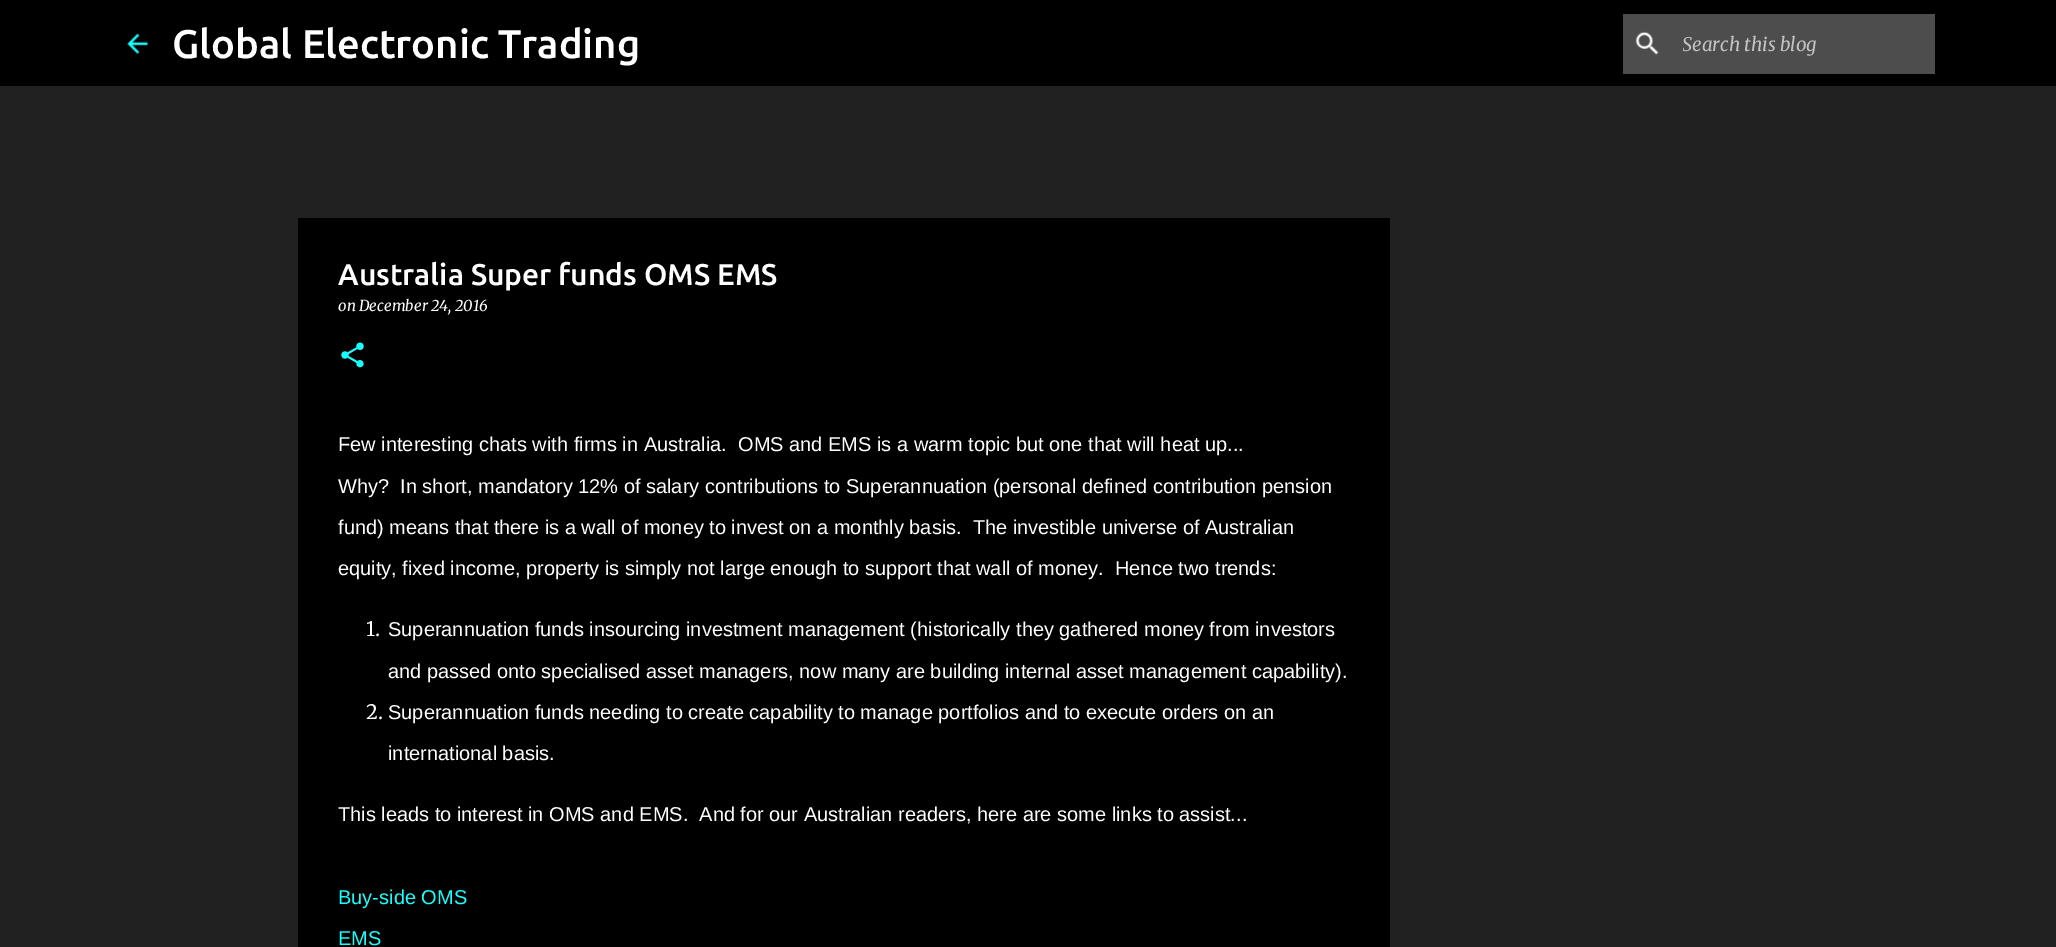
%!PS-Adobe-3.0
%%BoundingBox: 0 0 2056 947
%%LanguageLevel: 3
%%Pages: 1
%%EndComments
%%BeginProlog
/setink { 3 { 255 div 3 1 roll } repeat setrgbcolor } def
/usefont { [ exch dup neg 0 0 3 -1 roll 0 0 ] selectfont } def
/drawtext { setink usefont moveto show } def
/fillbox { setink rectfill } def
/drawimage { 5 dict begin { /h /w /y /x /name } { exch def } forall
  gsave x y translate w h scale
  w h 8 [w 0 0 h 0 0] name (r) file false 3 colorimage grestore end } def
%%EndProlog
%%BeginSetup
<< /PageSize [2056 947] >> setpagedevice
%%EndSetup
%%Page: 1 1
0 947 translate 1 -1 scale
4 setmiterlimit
0 0 2056 947 33 33 33 fillbox
0 0 2056 86 0 0 0 fillbox
(assets/img1.rgb) 127 33 21 21 drawimage
(Global Electronic Trading) 172 58 /Ubuntu-Medium 40 255 255 255 drawtext
1623 14 312 60 77 77 77 fillbox
(assets/img2.rgb) 1635 31 24 24 drawimage
gsave
1683 33 242 23 rectclip
(Search this blog) 1682 51 /Merriweather-Italic 18.75 194 194 194 drawtext
grestore
298 218 1092 729 0 0 0 fillbox
(Australia Super funds OMS EMS) 338 285 /Ubuntu-Medium 30 255 255 255 drawtext
(on December 24, 2016) 338 311 /Merriweather-Italic 15 255 255 255 drawtext
(assets/img3.rgb) 341 342 23 26 drawimage
(Few interesting chats with firms in Australia.  OMS and EMS is a warm topic but one that will heat up...) 338 451 /LiberationSans-Regular 20 255 255 255 drawtext
(Why?  In short, mandatory 12% of salary contributions to Superannuation \(personal defined contribution pension) 338 493 /LiberationSans-Regular 20 255 255 255 drawtext
(fund\) means that there is a wall of money to invest on a monthly basis.  The investible universe of Australian) 338 534 /LiberationSans-Regular 20 255 255 255 drawtext
(equity, fixed income, property is simply not large enough to support that wall of money.  Hence two trends:) 338 575 /LiberationSans-Regular 20 255 255 255 drawtext
(1.) 366 636 /Merriweather-Light 20 255 255 255 drawtext
(Superannuation funds insourcing investment management \(historically they gathered money from investors) 388 636 /LiberationSans-Regular 20 255 255 255 drawtext
(and passed onto specialised asset managers, now many are building internal asset management capability\).) 388 678 /LiberationSans-Regular 20 255 255 255 drawtext
(2.) 366 719 /Merriweather-Light 20 255 255 255 drawtext
(Superannuation funds needing to create capability to manage portfolios and to execute orders on an) 388 719 /LiberationSans-Regular 20 255 255 255 drawtext
(international basis.) 388 760 /LiberationSans-Regular 20 255 255 255 drawtext
(This leads to interest in OMS and EMS.  And for our Australian readers, here are some links to assist...) 338 821 /LiberationSans-Regular 20 255 255 255 drawtext
(Buy-side OMS) 338 904 /LiberationSans-Regular 20 24 255 255 drawtext
(EMS) 338 945 /LiberationSans-Regular 20 24 255 255 drawtext
showpage
%%EOF
